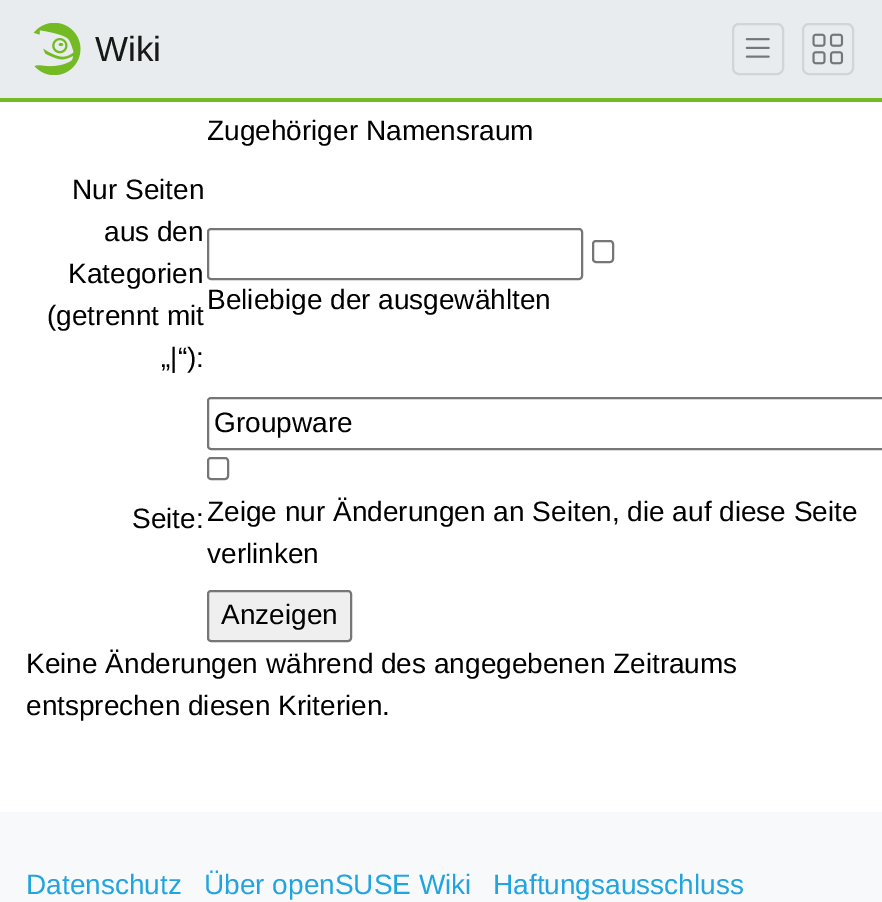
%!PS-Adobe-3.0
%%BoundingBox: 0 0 882 902
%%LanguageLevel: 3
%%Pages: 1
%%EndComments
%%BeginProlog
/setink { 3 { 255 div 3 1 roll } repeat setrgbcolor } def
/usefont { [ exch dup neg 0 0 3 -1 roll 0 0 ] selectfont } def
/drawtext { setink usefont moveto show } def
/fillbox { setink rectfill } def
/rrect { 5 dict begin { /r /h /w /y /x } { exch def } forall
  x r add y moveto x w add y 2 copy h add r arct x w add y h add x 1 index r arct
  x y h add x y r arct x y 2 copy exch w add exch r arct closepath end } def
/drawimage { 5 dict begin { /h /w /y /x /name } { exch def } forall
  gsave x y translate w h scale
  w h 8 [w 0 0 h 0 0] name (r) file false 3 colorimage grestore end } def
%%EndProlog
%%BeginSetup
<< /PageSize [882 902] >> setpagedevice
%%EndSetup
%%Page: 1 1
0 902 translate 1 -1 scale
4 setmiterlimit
0 0 882 902 255 255 255 fillbox
0 0 882 98 233 236 239 fillbox
0 98 882 4 115 186 37 fillbox
(assets/img1.rgb) 33 23 48 52 drawimage
(Wiki) 95 61 /LiberationSans-Regular 35 23 24 24 drawtext
210 212 215 setink
2 setlinewidth
733 24 50 50 6 rrect stroke
(assets/img2.rgb) 745 38 25 20 drawimage
803 24 50 50 6 rrect stroke
(assets/img3.rgb) 812 33 32 32 drawimage
(Zugehöriger Namensraum) 207 140 /LiberationSans-Regular 28 0 0 0 drawtext
(Nur Seiten) 72 199 /LiberationSans-Regular 28 0 0 0 drawtext
(aus den) 104 241 /LiberationSans-Regular 28 0 0 0 drawtext
(Kategorien) 68 283 /LiberationSans-Regular 28 0 0 0 drawtext
(\(getrennt mit) 47 325 /LiberationSans-Regular 28 0 0 0 drawtext
(„|“\):) 161 367 /LiberationSans-Regular 28 0 0 0 drawtext
118 118 118 setink
208 229 374 50 3 rrect stroke
593 241 20 21 3 rrect stroke
(Beliebige der ausgewählten) 207 309 /LiberationSans-Regular 28 0 0 0 drawtext
(Seite:) 132 528 /LiberationSans-Regular 28 0 0 0 drawtext
118 118 118 setink
208 398 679 51 3 rrect stroke
(Groupware) 214 432 /LiberationSans-Regular 28 0 0 0 drawtext
118 118 118 setink
208 458 20 21 3 rrect stroke
(Zeige nur Änderungen an Seiten, die auf diese Seite) 207 521 /LiberationSans-Regular 28 0 0 0 drawtext
(verlinken) 207 563 /LiberationSans-Regular 28 0 0 0 drawtext
239 239 239 setink
208 591 143 50 3 rrect gsave fill grestore
118 118 118 setink
stroke
(Anzeigen) 221 624 /LiberationSans-Regular 28 0 0 0 drawtext
(Keine Änderungen während des angegebenen Zeitraums) 26 673 /LiberationSans-Regular 28 0 0 0 drawtext
(entsprechen diesen Kriterien.) 26 715 /LiberationSans-Regular 28 0 0 0 drawtext
0 812 882 90 248 249 250 fillbox
(Datenschutz) 26 894 /LiberationSans-Regular 28 33 164 223 drawtext
(Über openSUSE Wiki) 204 894 /LiberationSans-Regular 28 33 164 223 drawtext
(Haftungsausschluss) 493 894 /LiberationSans-Regular 28 33 164 223 drawtext
showpage
%%EOF
